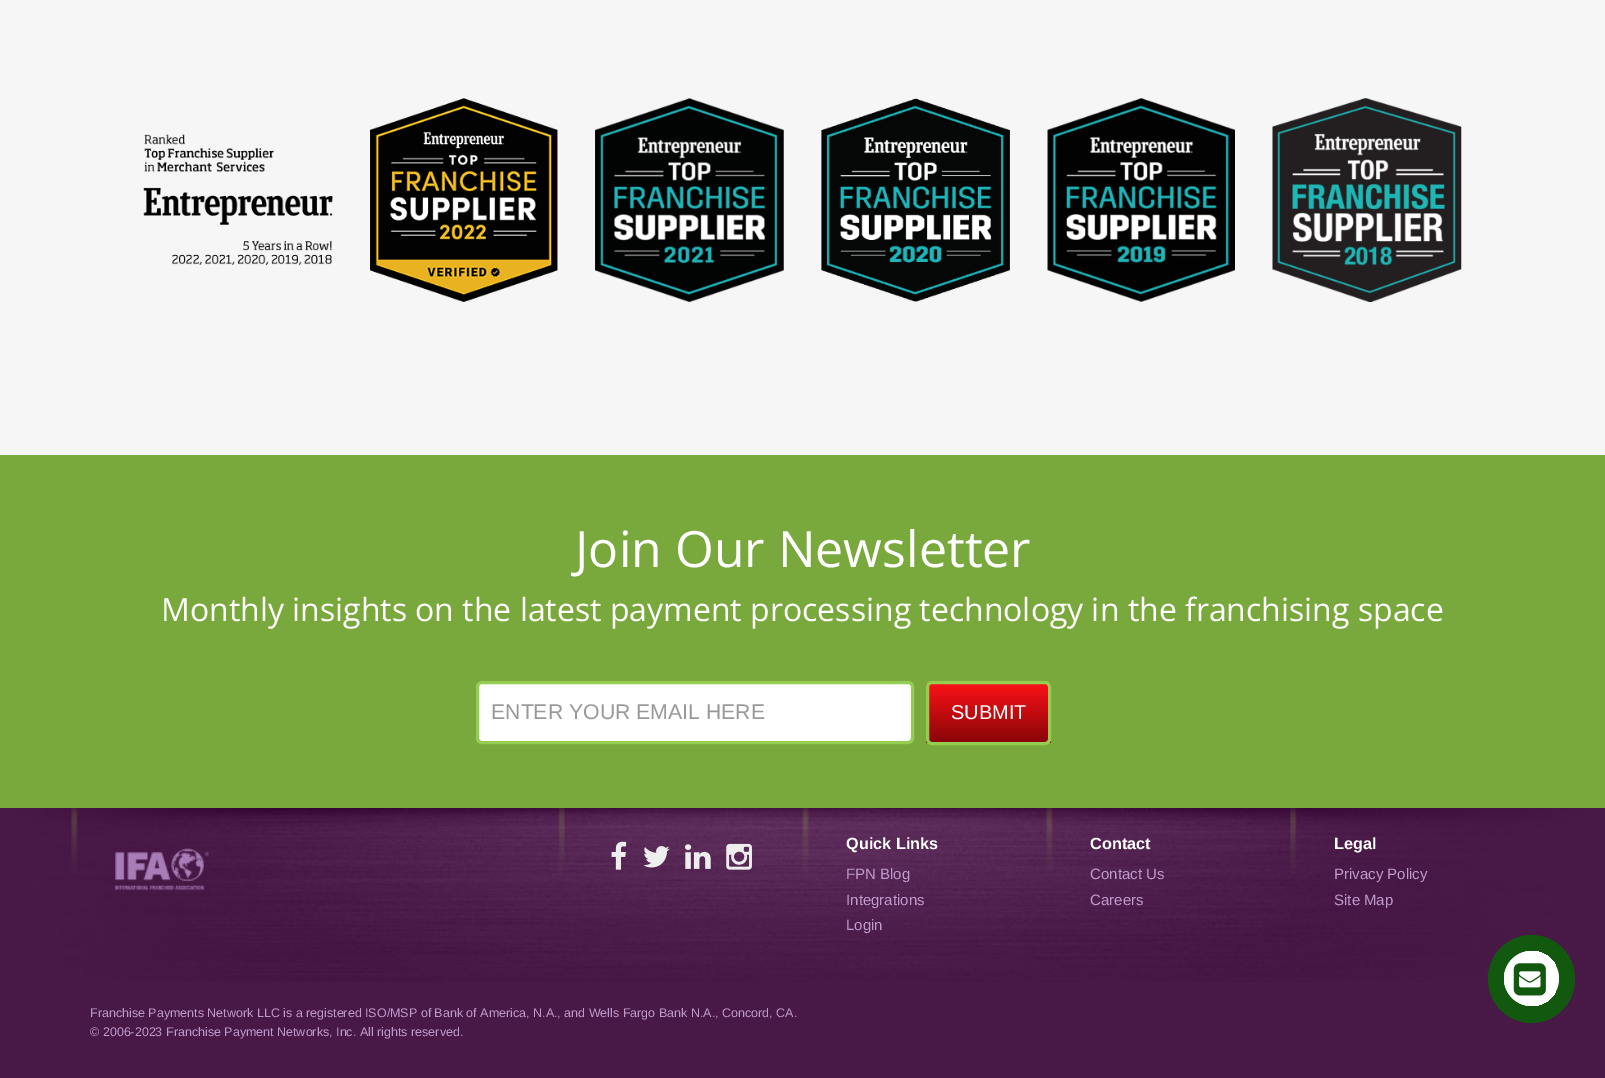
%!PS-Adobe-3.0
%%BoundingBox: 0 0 1605 1078
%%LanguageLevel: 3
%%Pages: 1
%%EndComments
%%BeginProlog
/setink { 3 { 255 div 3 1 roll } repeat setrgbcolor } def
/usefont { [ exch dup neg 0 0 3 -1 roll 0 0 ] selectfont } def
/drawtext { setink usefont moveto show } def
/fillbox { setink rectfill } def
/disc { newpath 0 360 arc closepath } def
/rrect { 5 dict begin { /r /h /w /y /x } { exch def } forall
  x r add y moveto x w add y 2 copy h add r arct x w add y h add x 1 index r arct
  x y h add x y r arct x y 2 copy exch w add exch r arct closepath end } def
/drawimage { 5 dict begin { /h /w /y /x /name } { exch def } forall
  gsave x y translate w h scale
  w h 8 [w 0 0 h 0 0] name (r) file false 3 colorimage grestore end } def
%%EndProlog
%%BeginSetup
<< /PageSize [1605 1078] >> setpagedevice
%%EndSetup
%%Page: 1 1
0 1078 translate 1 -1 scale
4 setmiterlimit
0 0 1605 1078 246 246 246 fillbox
(assets/img1.rgb) 143 134 190 131 drawimage
(assets/img2.rgb) 370 98 188 204 drawimage
(assets/img3.rgb) 595 98 189 204 drawimage
(assets/img4.rgb) 821 98 189 204 drawimage
(assets/img5.rgb) 1047 98 188 204 drawimage
(assets/img6.rgb) 1272 98 190 204 drawimage
0 455 1605 353 121 169 61 fillbox
(Join Our Newsletter) 575 567 /OpenSans-Regular 50 255 255 255 drawtext
(Monthly insights on the latest payment processing technology in the franchising space) 161 621 /OpenSans-Regular 32 255 255 255 drawtext
477.5 682.5 435 60 4.5 rrect gsave fill grestore
149 205 80 setink
3 setlinewidth
stroke
(ENTER YOUR EMAIL HERE) 491 719 /LiberationSans-Regular 21.25 153 153 153 drawtext
gsave
926 681 125 64 6 rrect clip newpath
gsave 926 684 moveto 1051 684 lineto 1051 743 lineto 926 743 lineto closepath clip newpath
<< /ShadingType 2 /ColorSpace /DeviceRGB /Coords [989 743 989 684] /Extend [true true] /Function << /FunctionType 2 /Domain [0 1] /C0 [0.533 0.02 0.031] /C1 [0.98 0.071 0.09] /N 1 >> >> shfill grestore
grestore
149 205 80 setink
927.5 682.5 122 61 4.5 rrect stroke
(SUBMIT) 951 719 /LiberationSans-Regular 20 255 255 255 drawtext
0 982 1605 96 72 25 71 fillbox
(assets/img7.rgb) 0 808 1605 174 drawimage
(assets/img8.rgb) 71 808 7 66 drawimage
(assets/img9.rgb) 115 848 94 43 drawimage
(assets/img10.rgb) 558 808 7 66 drawimage
(assets/img11.rgb) 611 841 16 29 drawimage
(assets/img12.rgb) 643 846 27 22 drawimage
(assets/img13.rgb) 685 844 26 25 drawimage
(assets/img14.rgb) 726 843 26 27 drawimage
(assets/img15.rgb) 802 808 7 65 drawimage
(Quick Links) 846 849 /LiberationSans-Bold 16.25 255 255 255 drawtext
(FPN Blog) 846 879 /LiberationSans-Regular 15 191 154 204 drawtext
(Integrations) 846 905 /LiberationSans-Regular 15 191 154 204 drawtext
(Login) 846 930 /LiberationSans-Regular 15 191 154 204 drawtext
(assets/img16.rgb) 1046 808 7 66 drawimage
(Contact) 1090 849 /LiberationSans-Bold 16.25 255 255 255 drawtext
(Contact Us) 1090 879 /LiberationSans-Regular 15 191 154 204 drawtext
(Careers) 1090 905 /LiberationSans-Regular 15 191 154 204 drawtext
(assets/img17.rgb) 1290 808 7 66 drawimage
(Legal) 1334 849 /LiberationSans-Bold 16.25 255 255 255 drawtext
(Privacy Policy) 1334 879 /LiberationSans-Regular 15 191 154 204 drawtext
(Site Map) 1334 905 /LiberationSans-Regular 15 191 154 204 drawtext
(Franchise Payments Network LLC is a registered ISO/MSP of Bank of America, N.A., and Wells Fargo Bank N.A., Concord, CA.) 90 1017 /LiberationSans-Regular 12.5 191 154 204 drawtext
(© 2006-2023 Franchise Payment Networks, Inc. All rights reserved.) 90 1036 /LiberationSans-Regular 12.5 191 154 204 drawtext
18 88 15 setink
1488 935 87 88 43.5 rrect fill
255 255 255 setink
1531.5 978.5 27.5 disc fill
gsave
1504 951 55 55 27.5 rrect clip newpath
1531.5 951 moveto 1556 951 lineto 1556 1006 lineto 1531.5 1006 lineto 1516.5 1006 1504 993.5 1504 978.5 curveto 1504 963.5 1516.5 951 1531.5 951 curveto closepath fill
grestore
(assets/img18.rgb) 1513 963 33 33 drawimage
showpage
%%EOF
